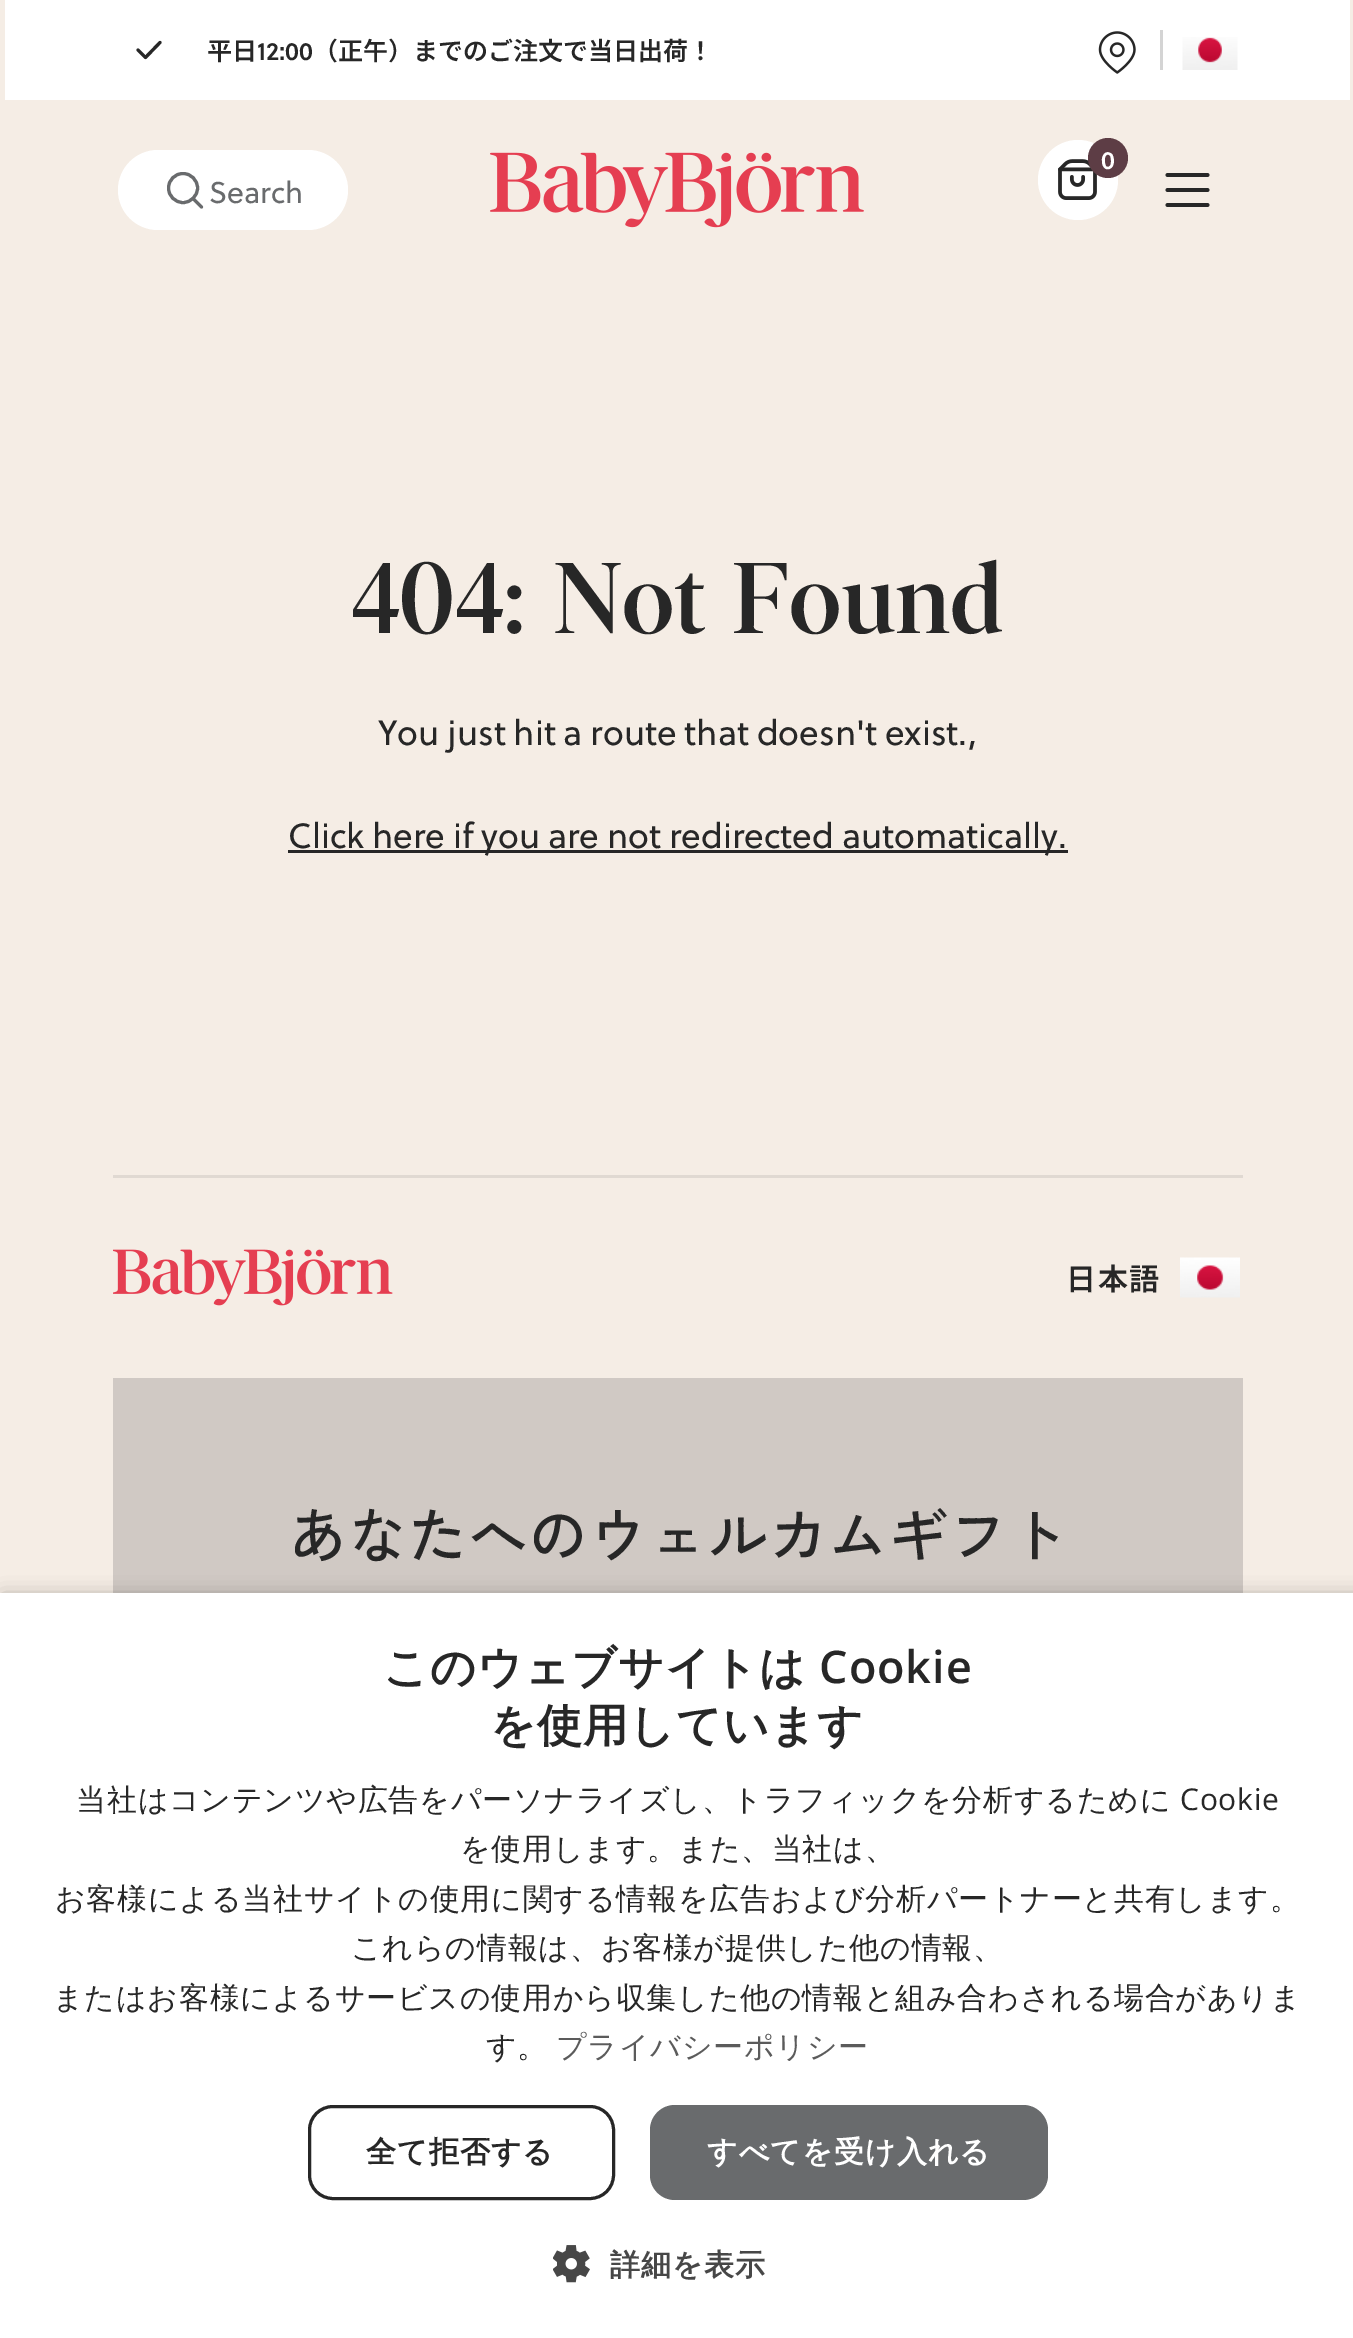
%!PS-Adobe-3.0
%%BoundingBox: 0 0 1353 2338
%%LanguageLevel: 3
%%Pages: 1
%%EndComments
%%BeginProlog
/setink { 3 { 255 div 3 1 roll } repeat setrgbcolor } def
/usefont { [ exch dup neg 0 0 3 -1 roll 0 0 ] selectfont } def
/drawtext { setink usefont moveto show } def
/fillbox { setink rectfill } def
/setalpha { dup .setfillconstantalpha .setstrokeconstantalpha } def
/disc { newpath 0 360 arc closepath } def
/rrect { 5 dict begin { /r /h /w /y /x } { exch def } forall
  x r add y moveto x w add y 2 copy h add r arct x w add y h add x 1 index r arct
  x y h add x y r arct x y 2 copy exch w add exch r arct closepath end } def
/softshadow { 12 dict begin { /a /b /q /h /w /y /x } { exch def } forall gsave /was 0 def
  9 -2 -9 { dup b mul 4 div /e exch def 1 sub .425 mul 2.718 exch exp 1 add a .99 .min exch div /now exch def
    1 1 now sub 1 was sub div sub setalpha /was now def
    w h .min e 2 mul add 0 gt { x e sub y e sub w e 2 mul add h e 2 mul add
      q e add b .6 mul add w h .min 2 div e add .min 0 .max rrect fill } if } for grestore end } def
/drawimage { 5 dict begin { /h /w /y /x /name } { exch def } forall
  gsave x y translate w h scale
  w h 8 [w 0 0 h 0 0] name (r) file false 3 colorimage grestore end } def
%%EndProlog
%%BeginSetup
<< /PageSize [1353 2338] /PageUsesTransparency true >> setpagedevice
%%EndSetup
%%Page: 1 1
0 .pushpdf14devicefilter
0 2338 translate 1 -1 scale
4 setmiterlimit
0 0 1353 2338 245 237 229 fillbox
5 0 1345 100 255 255 255 fillbox
39 39 39 setink
3.1 setlinewidth
1 setlinecap
1 setlinejoin
160 42.5 moveto 145.5 57.5 lineto 138 50 lineto stroke
(平日) 207 60 /NotoSansJP-SemiBold 25 39 39 39 drawtext
(12:00) 257 60 /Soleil-Medium 25 39 39 39 drawtext
(（正午）までのご注文で当日出荷！) 313 60 /NotoSansJP-SemiBold 25 39 39 39 drawtext
(assets/img1.rgb) 1098 31 38 43 drawimage
1160 30 3 40 212 212 212 fillbox
(assets/img2.rgb) 1182 37 56 33 drawimage
(assets/img3.rgb) 490 152 374 76 drawimage
255 255 255 setink
1078 180 40 disc fill
(assets/img4.rgb) 1058 159 39 41 drawimage
93 61 69 setink
1108 158 20 disc fill
(0) 1101 169 /Soleil-Medium 25 255 255 255 drawtext
39 39 39 setink
3.8 setlinewidth
1167.5 175 moveto 1207.5 175 lineto 1167.5 190 moveto 1207.5 190 lineto 1167.5 205 moveto 1207.5 205 lineto stroke
255 255 255 setink
118 150 230 80 40 rrect fill
105 107 109 setink
3.1 setlinewidth
0 setlinecap
0 setlinejoin
183 188 14.5 disc stroke
1 setlinecap
1 setlinejoin
193 198.5 moveto 201.5 207 lineto stroke
(Search) 209 203 /Soleil-Regular 30 105 107 109 drawtext
/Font-Medium 100 usefont
39 39 39 setink
351 633 moveto 12 0 32 (404: Not Found) widthshow
/Soleil-Regular 35 usefont
378 745 moveto -1 0 32 (You just hit a route that doesn't exist.) widthshow
(,) 968 745 /Soleil-Regular 35 39 39 39 drawtext
288 850 780 3 39 39 39 fillbox
288 848 moveto -1 0 32 (Click here if you are not redirected automatically.) widthshow
113 1175 1130 3 224 217 210 fillbox
(assets/img5.rgb) 113 1249 280 57 drawimage
/NotoSansJP-SemiBold 30 usefont
39 39 39 setink
1066 1290 moveto 1.5 0 (日本語) ashow
(assets/img6.rgb) 1180 1257 60 41 drawimage
113 1378 1130 215 208 201 196 fillbox
(あなたへのウェルカムギフト) 288 1558 /ZenKakuGothicNew-Medium 60 39 39 39 drawtext
0 0 0 setink
3 1598 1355 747 0 10 0.35 softshadow
0 1593 1353 745 255 255 255 fillbox
/WenQuanYiZenHei-Bold 45 usefont
39 39 39 setink
383 1683 moveto 1 0 (このウェブサイトは) ashow
/OpenSans-SemiBold 45 usefont
819 1683 moveto 1 0 (Cookie) ashow
/WenQuanYiZenHei-Bold 45 usefont
490 1741 moveto 1 0 (を使用しています) ashow
/WenQuanYiZenHei-Medium 30 usefont
76 1810 moveto 0.75 0 (当社はコンテンツや広告をパーソナライズし、トラフィックを分析するために) ashow
/OpenSans-Regular 30 usefont
1180 1810 moveto 0.75 0 (Cookie) ashow
/WenQuanYiZenHei-Medium 30 usefont
460 1859 moveto 0.75 0 (を使用します。また、当社は、) ashow
55 1909 moveto 0.75 0 (お客様による当社サイトの使用に関する情報を広告および分析パートナーと共有します。) ashow
351 1958 moveto 0.75 0 (これらの情報は、お客様が提供した他の情報、) ashow
53 2008 moveto 0.75 0 (またはお客様によるサービスの使用から収集した他の情報と組み合わされる場合がありま) ashow
486 2057 moveto 0.75 0 (す。) ashow
91 91 91 setink
556 2057 moveto 0.75 0 (プライバシーポリシー) ashow
39 39 39 setink
3 setlinewidth
0 setlinecap
0 setlinejoin
309.5 2106.5 304 92 23.5 rrect stroke
/WenQuanYiZenHei-Bold 30 usefont
366 2162 moveto 1 0 (全て拒否する) ashow
105 107 109 setink
650 2105 398 95 25 rrect fill
255 255 255 setink
707 2162 moveto 1 0 (すべてを受け入れる) ashow
(assets/img7.rgb) 553 2245 37 38 drawimage
71 71 71 setink
610 2275 moveto 1 0 (詳細を表示) ashow
.poppdf14devicefilter showpage
%%EOF
